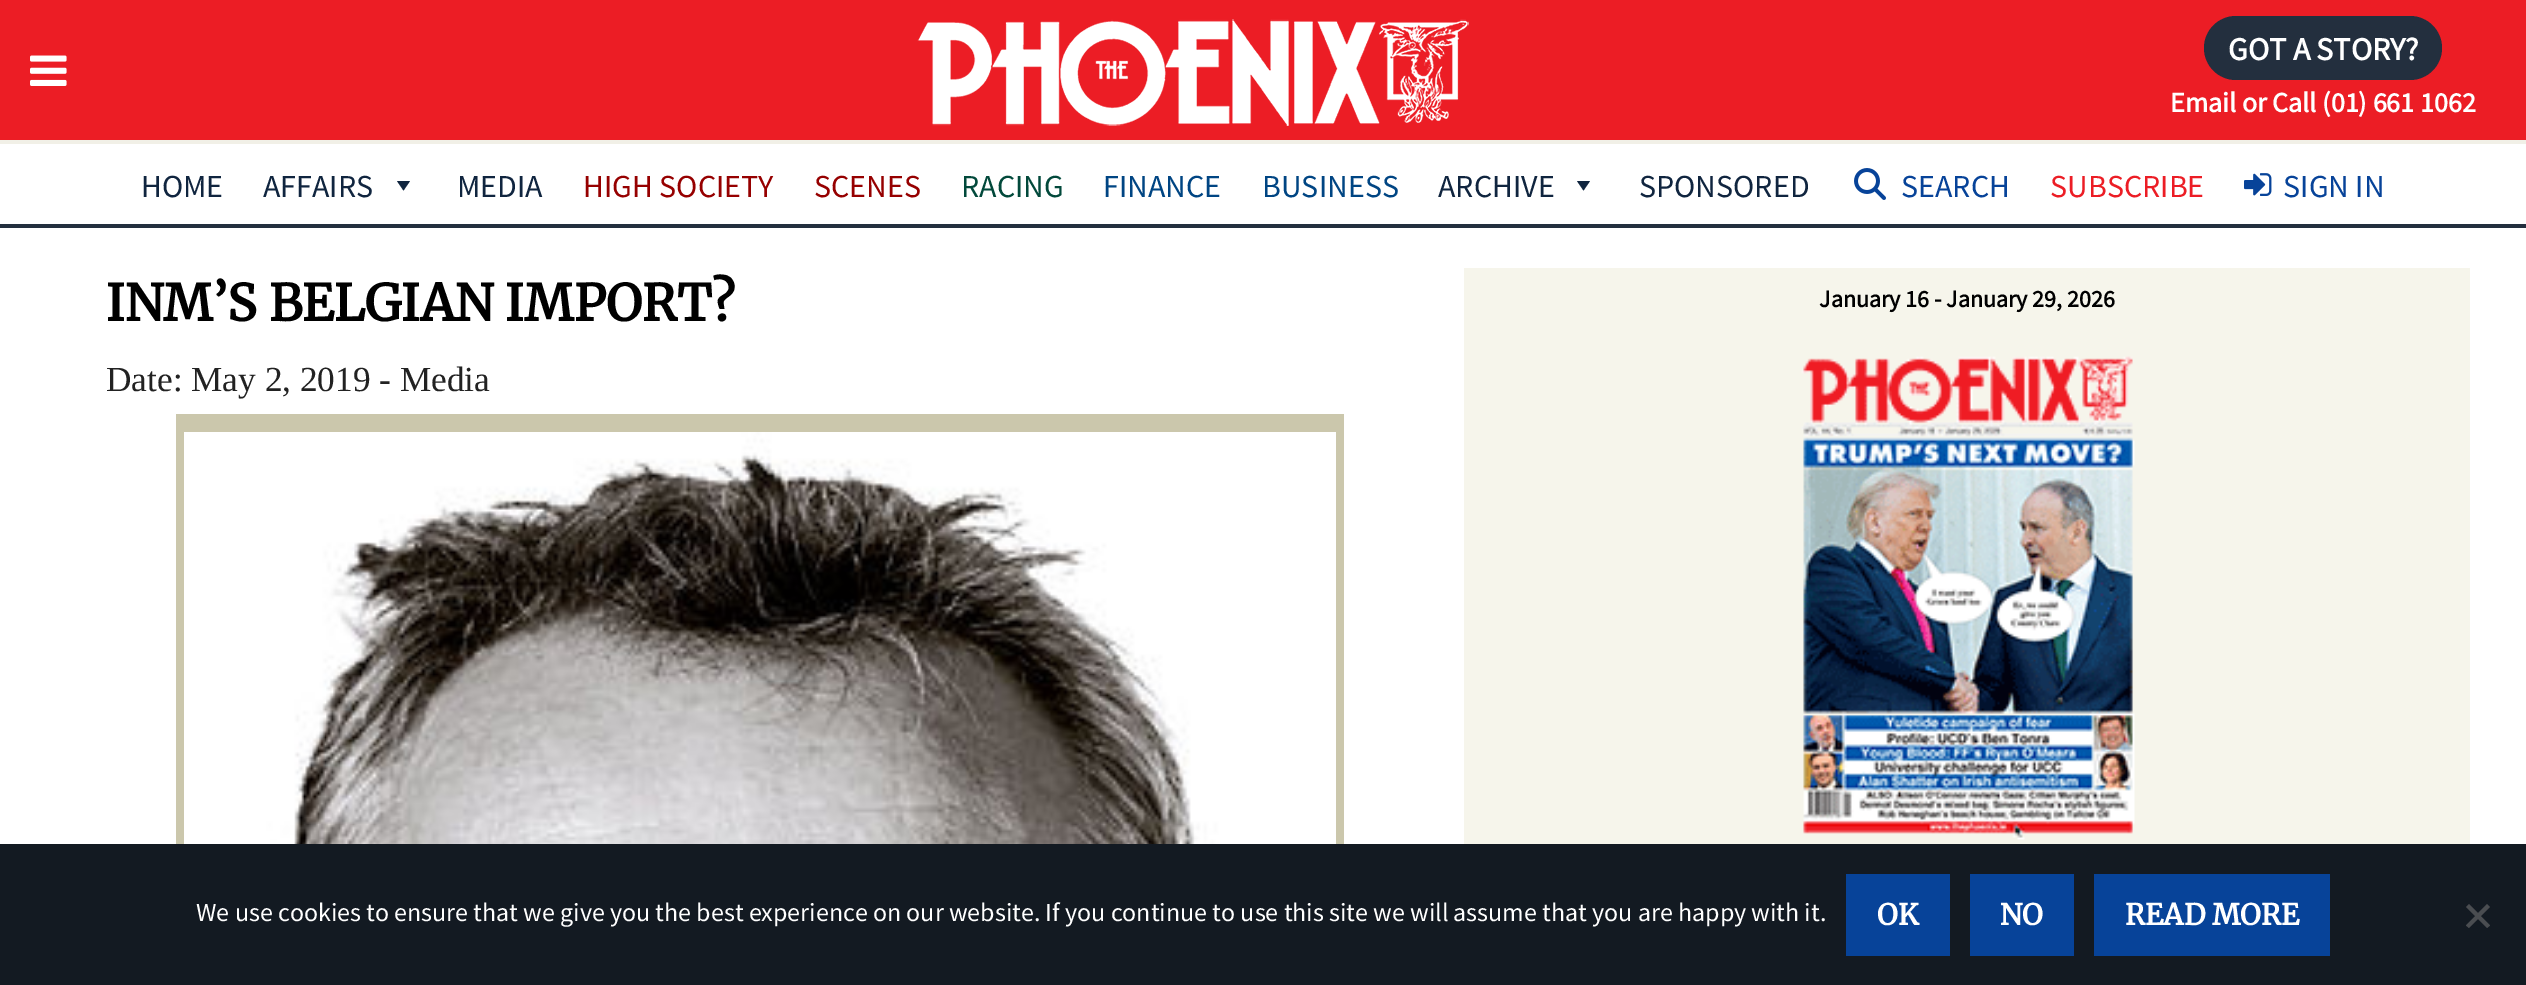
%!PS-Adobe-3.0
%%BoundingBox: 0 0 2526 985
%%LanguageLevel: 3
%%Pages: 1
%%EndComments
%%BeginProlog
/setink { 3 { 255 div 3 1 roll } repeat setrgbcolor } def
/usefont { [ exch dup neg 0 0 3 -1 roll 0 0 ] selectfont } def
/drawtext { setink usefont moveto show } def
/fillbox { setink rectfill } def
/rrect { 5 dict begin { /r /h /w /y /x } { exch def } forall
  x r add y moveto x w add y 2 copy h add r arct x w add y h add x 1 index r arct
  x y h add x y r arct x y 2 copy exch w add exch r arct closepath end } def
/drawimage { 5 dict begin { /h /w /y /x /name } { exch def } forall
  gsave x y translate w h scale
  w h 8 [w 0 0 h 0 0] name (r) file false 3 colorimage grestore end } def
%%EndProlog
%%BeginSetup
<< /PageSize [2526 985] >> setpagedevice
%%EndSetup
%%Page: 1 1
0 985 translate 1 -1 scale
4 setmiterlimit
0 0 2526 985 241 240 231 fillbox
0 0 2526 140 236 29 37 fillbox
(assets/img1.rgb) 30 55 37 31 drawimage
(assets/img2.rgb) 917 19 552 107 drawimage
35 47 62 setink
2204 16 238 64 32 rrect fill
(GOT A STORY?) 2228 60 /SourceSansPro-Bold 32 255 255 255 drawtext
(Email or Call \(01\) 661 1062) 2170 112 /SourceSansPro-Bold 28 255 255 255 drawtext
0 224 2526 4 35 47 62 fillbox
0 144 2526 80 255 255 255 fillbox
(HOME) 141 197 /SourceSansPro-Regular 32 16 37 63 drawtext
(AFFAIRS) 263 197 /SourceSansPro-Regular 32 16 37 63 drawtext
410 181 moveto 403.5 190.5 lineto 397 181 lineto closepath fill
(MEDIA) 457 197 /SourceSansPro-Regular 32 16 37 63 drawtext
(HIGH SOCIETY) 583 197 /SourceSansPro-Regular 32 150 0 0 drawtext
(SCENES) 814 197 /SourceSansPro-Regular 32 150 0 0 drawtext
(RACING) 961 197 /SourceSansPro-Regular 32 2 73 59 drawtext
(FINANCE) 1103 197 /SourceSansPro-Regular 32 0 69 131 drawtext
(BUSINESS) 1262 197 /SourceSansPro-Regular 32 0 69 131 drawtext
(ARCHIVE) 1438 197 /SourceSansPro-Regular 32 16 37 63 drawtext
1590 181 moveto 1583.5 190.5 lineto 1577 181 lineto closepath fill
(SPONSORED) 1639 197 /SourceSansPro-Regular 32 16 37 63 drawtext
(assets/img3.rgb) 1854 168 32 32 drawimage
(SEARCH) 1901 197 /SourceSansPro-Regular 32 7 67 153 drawtext
(SUBSCRIBE) 2050 197 /SourceSansPro-Regular 32 236 29 37 drawtext
(assets/img4.rgb) 2244 173 28 23 drawimage
(SIGN IN) 2283 197 /SourceSansPro-Regular 32 7 67 153 drawtext
0 228 2526 616 255 255 255 fillbox
(INM’S BELGIAN IMPORT?) 106 321 /Merriweather-Bold 50 0 0 0 drawtext
(Date: May 2, 2019 - Media) 106 391 /LiberationSerif-Regular 35.25 34 34 34 drawtext
176 414 1168 430 203 199 172 fillbox
(assets/img5.rgb) 184 432 1152 412 drawimage
1464 268 1006 576 246 245 235 fillbox
(January 16 - January 29, 2026) 1819 307 /SourceSansPro-Bold 24 0 0 0 drawtext
(assets/img6.rgb) 1801 356 334 484 drawimage
0 844 2526 141 19 26 34 fillbox
(We use cookies to ensure that we give you the best experience on our website. If you continue to use this site we will assume that you are happy with it.) 196 921 /SourceSansPro-Regular 26 255 255 255 drawtext
1846 874 104 82 7 67 153 fillbox
(OK) 1877 925 /Merriweather-Bold 28.75 255 255 255 drawtext
1970 874 104 82 7 67 153 fillbox
(NO) 2000 925 /Merriweather-Bold 28.75 255 255 255 drawtext
2094 874 236 82 7 67 153 fillbox
(READ MORE) 2125 925 /Merriweather-Bold 28.75 255 255 255 drawtext
74 77 81 setink
2487 904 moveto 2490 907 lineto 2469 928 lineto 2466 925.5 lineto closepath fill
2466 907 moveto 2469 904 lineto 2490 925.5 lineto 2487 928 lineto closepath fill
showpage
%%EOF
